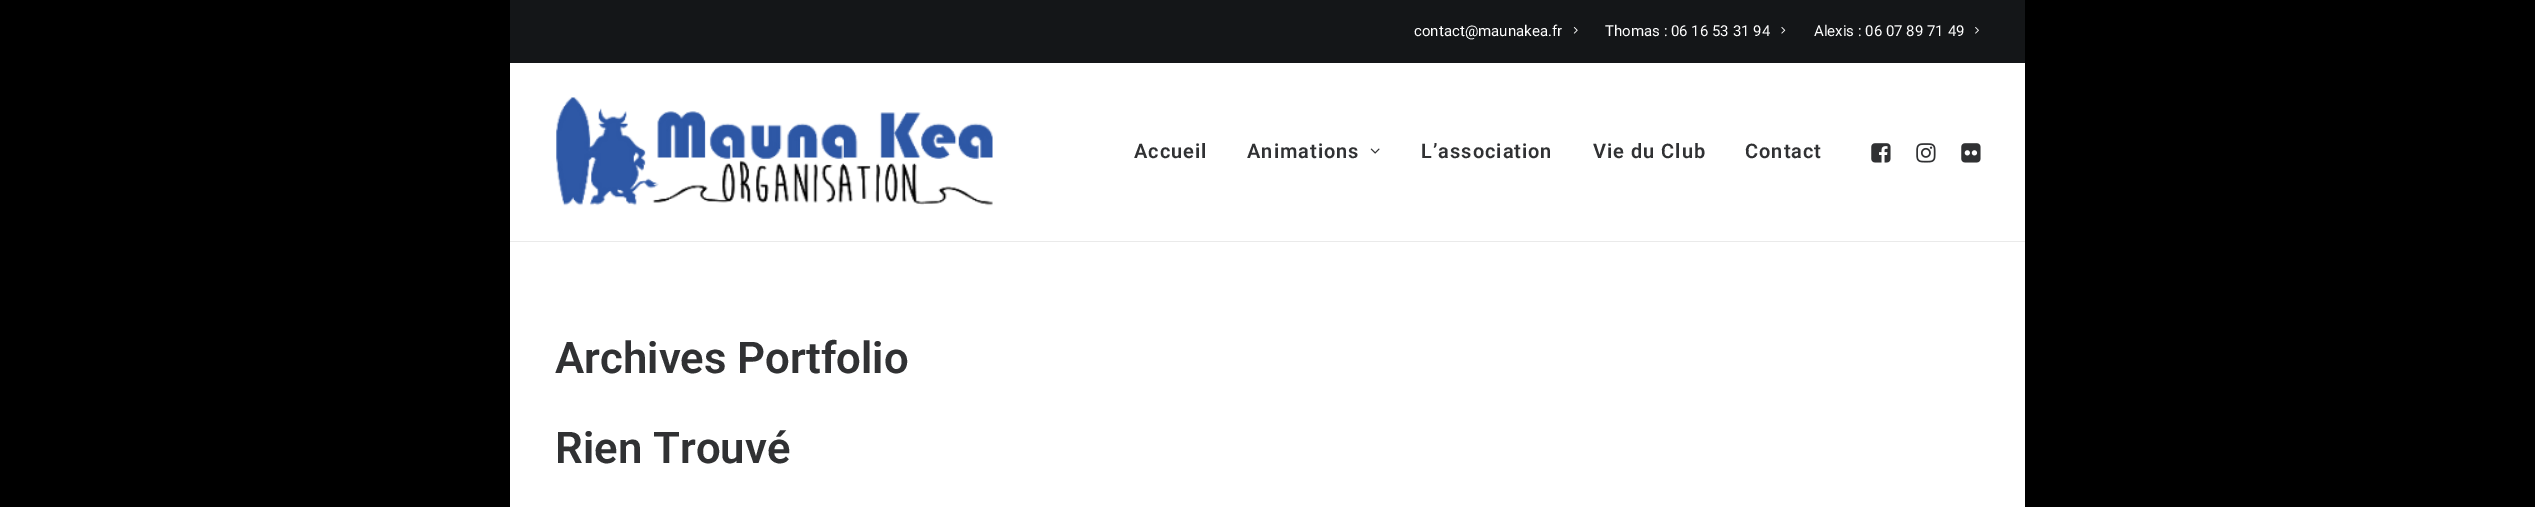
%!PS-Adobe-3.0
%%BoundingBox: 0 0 2535 507
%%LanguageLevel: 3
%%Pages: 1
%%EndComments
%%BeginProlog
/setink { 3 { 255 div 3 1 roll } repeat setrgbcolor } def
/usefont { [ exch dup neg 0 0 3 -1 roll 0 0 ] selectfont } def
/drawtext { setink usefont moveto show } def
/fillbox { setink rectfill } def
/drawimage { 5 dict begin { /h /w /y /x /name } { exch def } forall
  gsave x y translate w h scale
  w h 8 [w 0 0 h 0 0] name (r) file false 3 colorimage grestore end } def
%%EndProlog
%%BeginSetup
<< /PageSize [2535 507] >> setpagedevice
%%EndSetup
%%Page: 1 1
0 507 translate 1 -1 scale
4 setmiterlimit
0 0 2535 507 0 0 0 fillbox
510 0 1515 63 20 22 24 fillbox
(contact@maunakea.fr) 1414 36 /Roboto-Regular 15 255 255 255 drawtext
(assets/img1.rgb) 1573 27 5 7 drawimage
(Thomas : 06 16 53 31 94) 1605 36 /Roboto-Regular 15 255 255 255 drawtext
(assets/img2.rgb) 1781 27 5 7 drawimage
(Alexis : 06 07 89 71 49) 1814 36 /Roboto-Regular 15 255 255 255 drawtext
(assets/img3.rgb) 1975 27 4 7 drawimage
510 63 1515 444 255 255 255 fillbox
510 241 1515 1 234 234 234 fillbox
(assets/img4.rgb) 556 97 437 109 drawimage
/Roboto-SemiBold 20 usefont
48 49 51 setink
1134 158 moveto 1 0 (Accueil) ashow
1247 158 moveto 1 0 (Animations) ashow
(assets/img5.rgb) 1370 148 10 6 drawimage
1421 158 moveto 1 0 (L’association) ashow
1593 158 moveto 1 0 (Vie du Club) ashow
1745 158 moveto 1 0 (Contact) ashow
(assets/img6.rgb) 1871 143 20 20 drawimage
(assets/img7.rgb) 1916 143 20 20 drawimage
(assets/img8.rgb) 1961 143 20 20 drawimage
(Archives Portfolio) 555 373 /Roboto-SemiBold 43.75 48 49 51 drawtext
(Rien Trouvé) 555 463 /Roboto-SemiBold 43.75 48 49 51 drawtext
showpage
%%EOF
